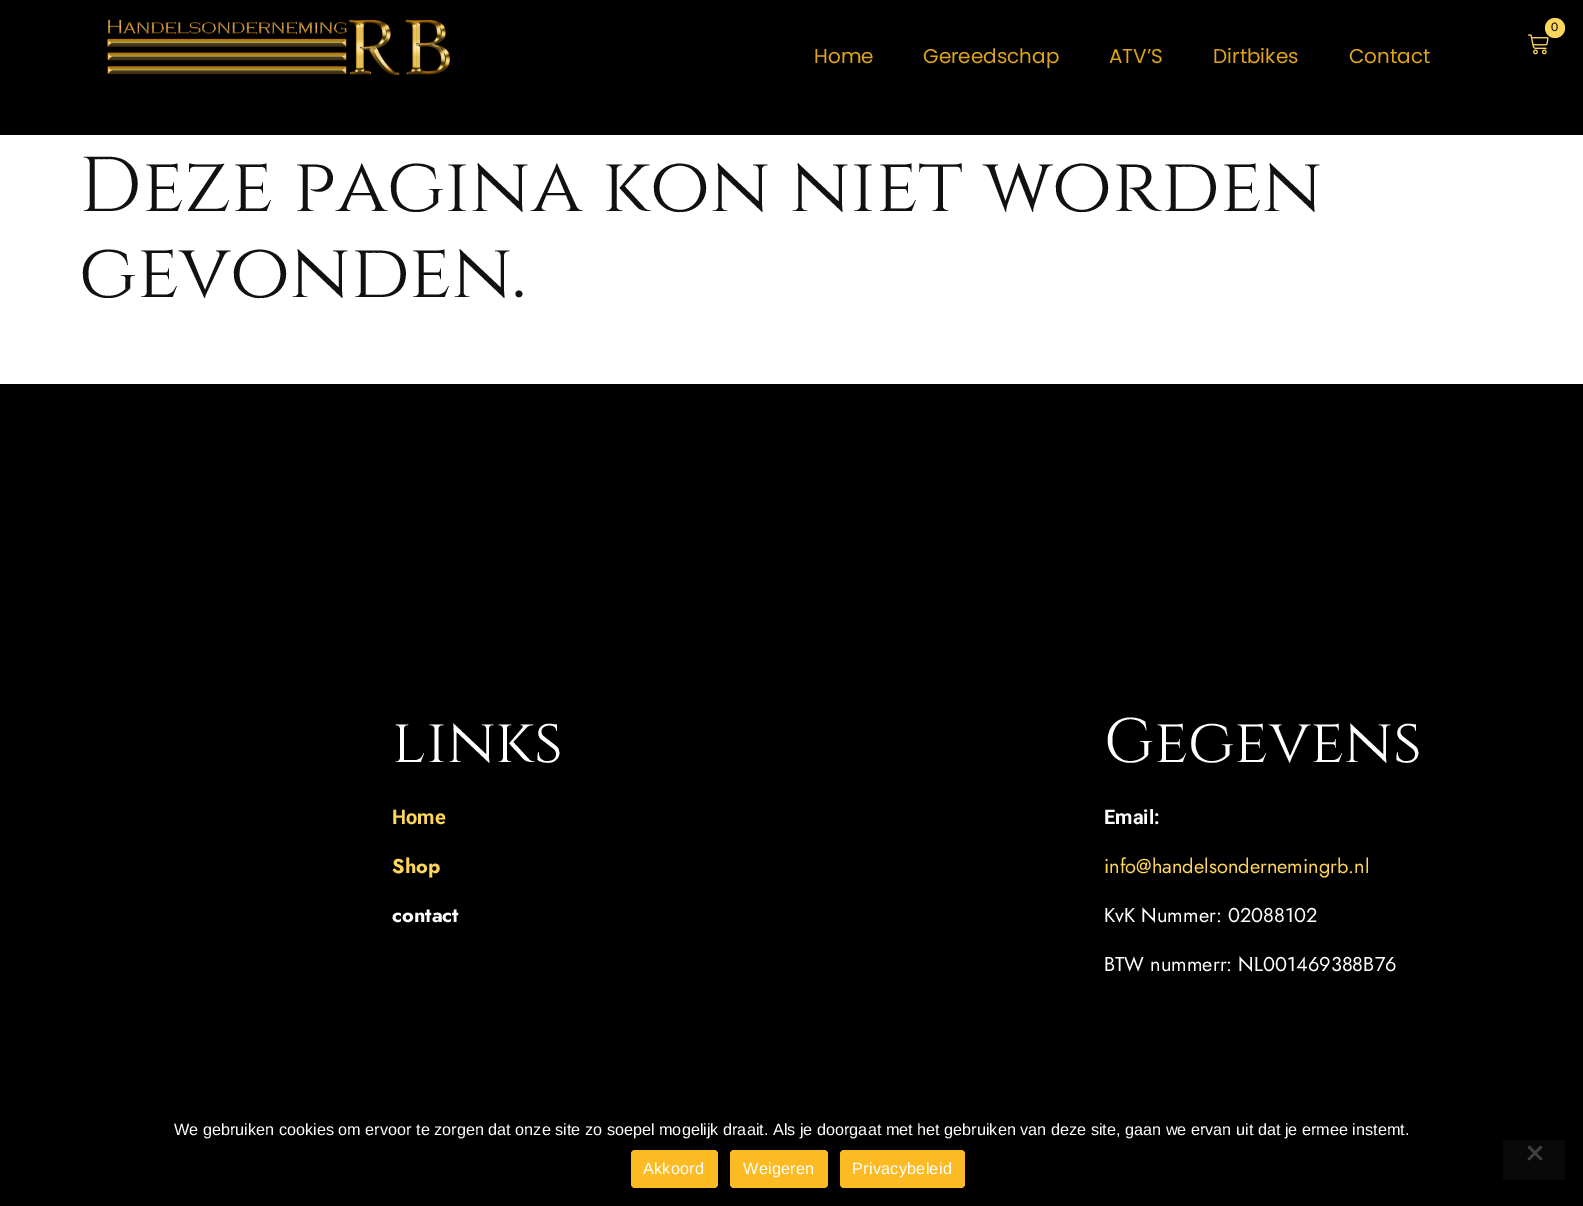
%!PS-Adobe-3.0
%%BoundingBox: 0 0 1583 1206
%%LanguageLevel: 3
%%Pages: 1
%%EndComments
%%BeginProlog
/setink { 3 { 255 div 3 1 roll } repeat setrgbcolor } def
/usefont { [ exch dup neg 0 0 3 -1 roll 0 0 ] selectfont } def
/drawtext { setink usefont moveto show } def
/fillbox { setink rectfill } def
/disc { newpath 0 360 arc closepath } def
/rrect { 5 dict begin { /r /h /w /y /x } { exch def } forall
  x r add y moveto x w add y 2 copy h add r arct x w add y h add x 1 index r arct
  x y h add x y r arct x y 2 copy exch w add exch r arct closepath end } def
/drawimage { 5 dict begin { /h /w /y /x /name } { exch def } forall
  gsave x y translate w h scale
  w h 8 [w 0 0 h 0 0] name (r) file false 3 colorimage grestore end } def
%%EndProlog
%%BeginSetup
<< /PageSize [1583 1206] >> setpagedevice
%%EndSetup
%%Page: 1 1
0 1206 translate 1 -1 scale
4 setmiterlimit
0 0 1583 1206 255 255 255 fillbox
0 0 1583 135 0 0 0 fillbox
(assets/img1.rgb) 107 19 343 57 drawimage
(assets/img2.rgb) 1528 34 21 21 drawimage
255 214 92 setink
1555 28 10 disc fill
(0) 1551 31 /Jost-Regular 12 0 0 0 drawtext
(Home) 814 63 /Poppins-Regular 20 223 164 26 drawtext
(Gereedschap) 923 63 /Poppins-Regular 20 223 164 26 drawtext
(ATV’S) 1109 63 /Poppins-Regular 20 223 164 26 drawtext
(Dirtbikes) 1213 63 /Poppins-Regular 20 223 164 26 drawtext
(Contact) 1349 63 /Poppins-Regular 20 223 164 26 drawtext
(Deze pagina kon niet worden) 79 211 /Cinzel-Regular 77.5 17 17 17 drawtext
(gevonden.) 79 297 /Cinzel-Regular 77.5 17 17 17 drawtext
0 384 1583 822 0 0 0 fillbox
(links) 392 762 /Cinzel-Regular 62.5 255 255 255 drawtext
(Home) 392 824 /Roboto-Bold 20 255 214 92 drawtext
(Shop) 392 873 /Jost-Bold 20 255 214 92 drawtext
(contact) 392 922 /Jost-Bold 20 255 255 255 drawtext
(Gegevens) 1104 762 /Cinzel-Regular 62.5 255 255 255 drawtext
(Email:) 1104 824 /Roboto-Bold 20 255 255 255 drawtext
(info@handelsondernemingrb.nl) 1104 873 /Jost-Regular 20 255 214 92 drawtext
(KvK Nummer: 02088102) 1104 922 /Jost-Regular 20 255 255 255 drawtext
(BTW nummerr: NL001469388B76) 1104 971 /Jost-Regular 20 255 255 255 drawtext
(We gebruiken cookies om ervoor te zorgen dat onze site zo soepel mogelijk draait. Als je doorgaat met het gebruiken van deze site, gaan we ervan uit dat je ermee instemt.) 174 1135 /LiberationSans-Regular 16.25 255 255 255 drawtext
252 187 35 setink
631 1150 87 38 4 rrect fill
255 255 255 setink
643 1174 moveto 0.25 0 (Akkoord) ashow
252 187 35 setink
730 1150 98 38 4 rrect fill
255 255 255 setink
743 1174 moveto 0.25 0 (Weigeren) ashow
252 187 35 setink
840 1150 125 38 4 rrect fill
255 255 255 setink
852 1174 moveto 0.25 0 (Privacybeleid) ashow
1503 1140 62 40 9 9 9 fillbox
64 64 64 setink
1540.5 1145.5 moveto 1542.5 1147.5 lineto 1529.5 1160.5 lineto 1527.5 1159 lineto closepath fill
1527.5 1147.5 moveto 1529.5 1145.5 lineto 1542.5 1159 lineto 1540.5 1160.5 lineto closepath fill
showpage
%%EOF
